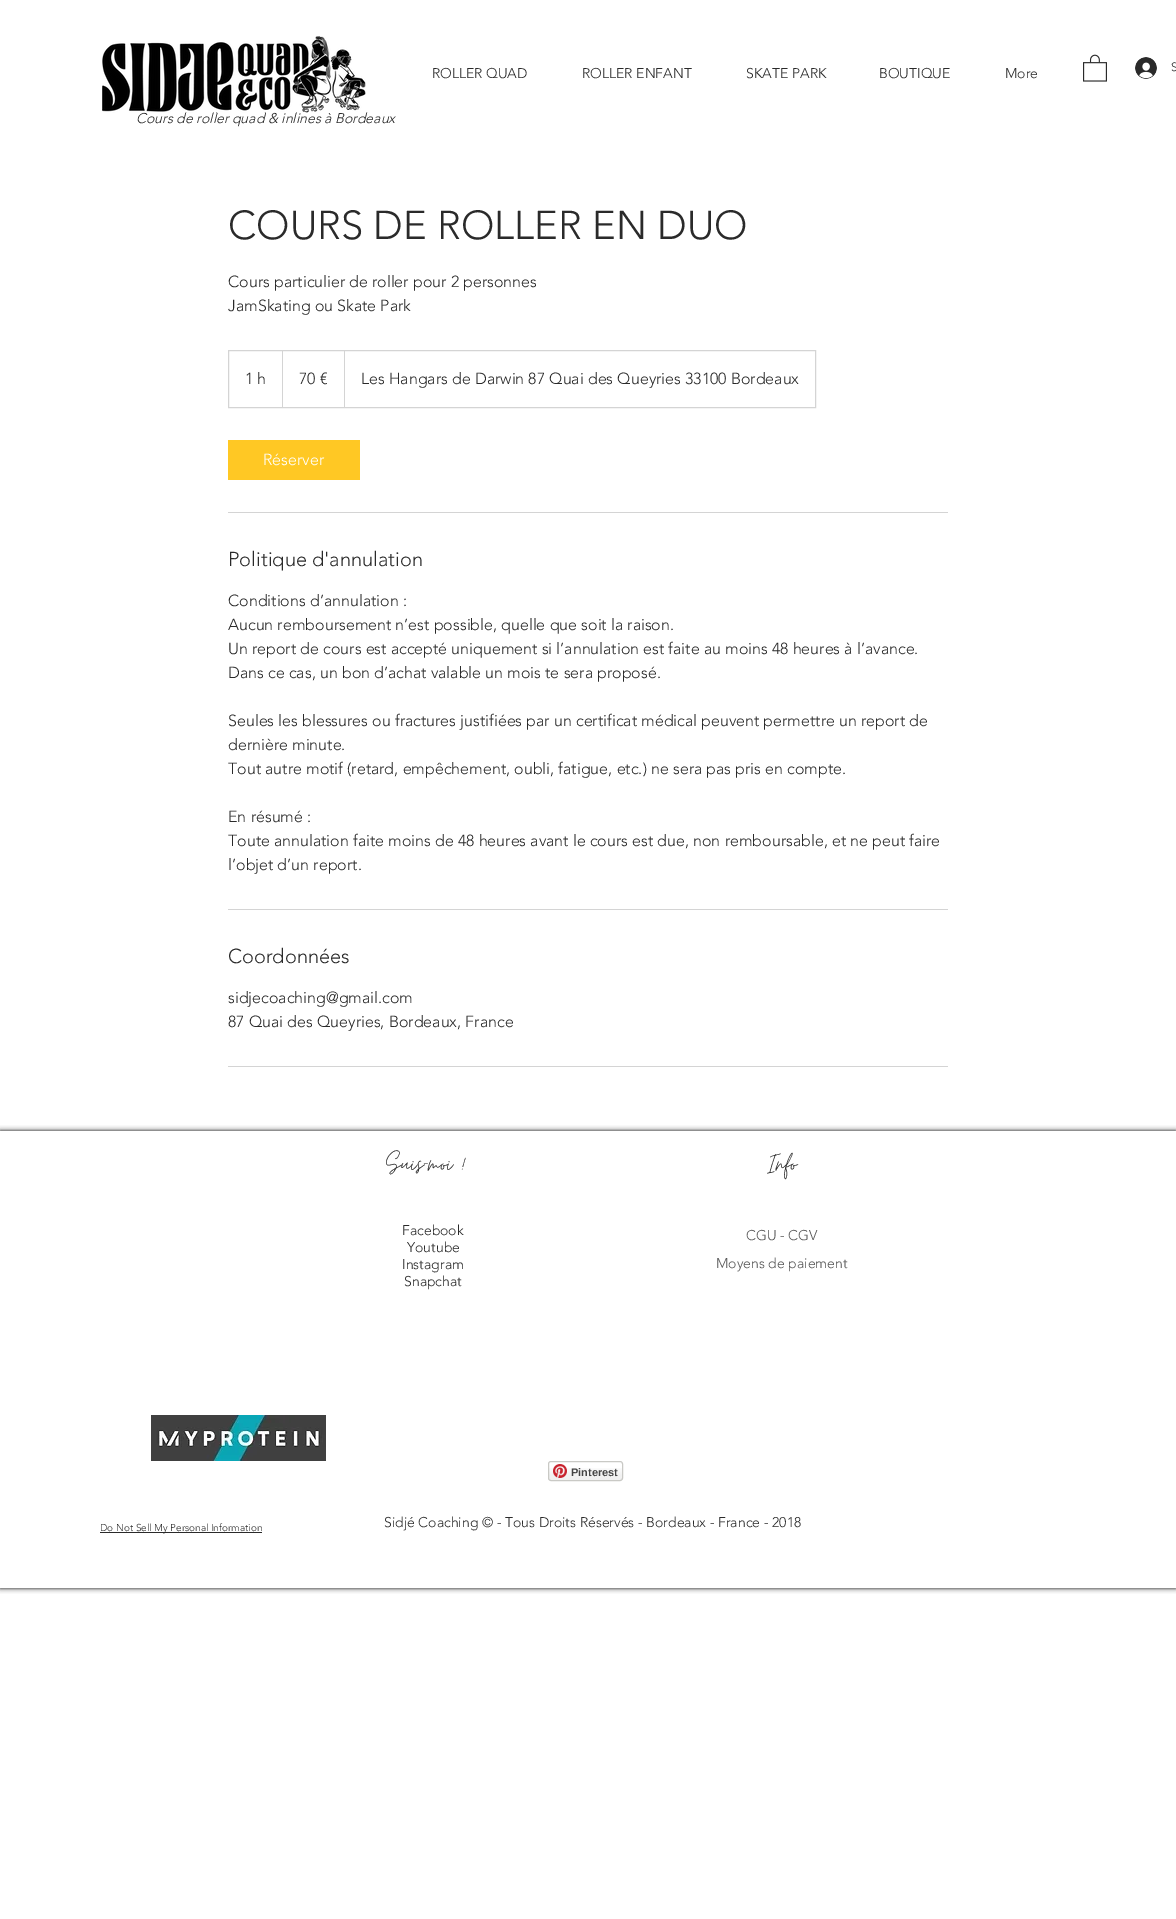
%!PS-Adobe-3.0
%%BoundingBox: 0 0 1176 1919
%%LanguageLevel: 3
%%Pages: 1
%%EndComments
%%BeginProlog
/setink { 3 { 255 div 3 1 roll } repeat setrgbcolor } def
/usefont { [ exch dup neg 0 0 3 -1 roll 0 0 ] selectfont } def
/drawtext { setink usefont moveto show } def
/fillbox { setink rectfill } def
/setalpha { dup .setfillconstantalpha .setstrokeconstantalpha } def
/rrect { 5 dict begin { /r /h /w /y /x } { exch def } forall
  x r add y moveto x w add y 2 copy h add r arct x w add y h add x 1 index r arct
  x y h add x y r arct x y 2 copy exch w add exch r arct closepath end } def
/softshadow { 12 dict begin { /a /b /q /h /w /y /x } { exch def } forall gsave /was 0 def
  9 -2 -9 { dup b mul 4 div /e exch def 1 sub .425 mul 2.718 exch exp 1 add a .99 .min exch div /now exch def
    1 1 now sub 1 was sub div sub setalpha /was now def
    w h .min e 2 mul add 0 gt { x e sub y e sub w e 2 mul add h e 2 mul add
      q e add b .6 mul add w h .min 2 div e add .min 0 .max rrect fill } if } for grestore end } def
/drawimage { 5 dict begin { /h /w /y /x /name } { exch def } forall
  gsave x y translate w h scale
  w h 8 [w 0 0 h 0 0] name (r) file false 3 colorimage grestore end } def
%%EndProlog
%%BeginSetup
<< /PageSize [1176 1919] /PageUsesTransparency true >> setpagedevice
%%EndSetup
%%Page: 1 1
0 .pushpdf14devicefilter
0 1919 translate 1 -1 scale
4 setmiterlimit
0 0 1176 1919 255 255 255 fillbox
(Cours de roller quad & inlines à Bordeaux) 136 123 /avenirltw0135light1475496-LightItalic 14 42 42 42 drawtext
(assets/img1.rgb) 102 36 264 77 drawimage
(ROLLER QUAD) 432 78 /avenirltw0135light1475496-Light 14 42 42 42 drawtext
(ROLLER ENFANT) 582 78 /avenirltw0135light1475496-Light 14 42 42 42 drawtext
(SKATE PARK) 746 78 /avenirltw0135light1475496-Light 14 42 42 42 drawtext
(BOUTIQUE) 879 78 /avenirltw0135light1475496-Light 14 42 42 42 drawtext
(More) 1005 78 /avenirltw0135light1475496-Light 14 42 42 42 drawtext
(assets/img2.rgb) 1083 54 24 28 drawimage
(assets/img3.rgb) 1135 57 22 22 drawimage
(S) 1171 71 /avenirltw0135light1475496-Light 12 42 42 42 drawtext
(COURS DE ROLLER EN DUO) 228 239 /avenirltw0135light1475496-Light 40 42 42 42 drawtext
(Cours particulier de roller pour 2 personnes) 228 287 /avenirltw0135light1475496-Light 16 42 42 42 drawtext
(JamSkating ou Skate Park) 228 311 /avenirltw0135light1475496-Light 16 42 42 42 drawtext
212 212 212 setink
228.5 350.5 587 57 rectstroke
(1 h) 245 384 /avenirltw0135light1475496-Light 16 42 42 42 drawtext
212 212 212 setink
282 407 moveto 282 350 lineto 283 351 lineto 283 407 lineto closepath fill
(70 €) 299 384 /avenirltw0135light1475496-Light 16 42 42 42 drawtext
212 212 212 setink
344 407 moveto 344 350 lineto 345 351 lineto 345 407 lineto closepath fill
(Les Hangars de Darwin 87 Quai des Queyries 33100 Bordeaux) 361 384 /avenirltw0135light1475496-Light 16 42 42 42 drawtext
228 440 132 40 255 200 36 fillbox
(Réserver) 263 465 /avenirltw0135light1475496-Light 16 255 255 255 drawtext
228 512 720 1 212 212 212 fillbox
(Politique d'annulation) 228 566 /avenirltw0135light1475496-Light 20 42 42 42 drawtext
(Conditions d’annulation :) 228 606 /avenirltw0135light1475496-Light 16 42 42 42 drawtext
(Aucun remboursement n’est possible, quelle que soit la raison.) 228 630 /avenirltw0135light1475496-Light 16 42 42 42 drawtext
(Un report de cours est accepté uniquement si l’annulation est faite au moins 48 heures à l’avance.) 228 654 /avenirltw0135light1475496-Light 16 42 42 42 drawtext
(Dans ce cas, un bon d’achat valable un mois te sera proposé.) 228 678 /avenirltw0135light1475496-Light 16 42 42 42 drawtext
(Seules les blessures ou fractures justifiées par un certificat médical peuvent permettre un report de) 228 726 /avenirltw0135light1475496-Light 16 42 42 42 drawtext
(dernière minute.) 228 750 /avenirltw0135light1475496-Light 16 42 42 42 drawtext
(Tout autre motif \(retard, empêchement, oubli, fatigue, etc.\) ne sera pas pris en compte.) 228 774 /avenirltw0135light1475496-Light 16 42 42 42 drawtext
(En résumé :) 228 822 /avenirltw0135light1475496-Light 16 42 42 42 drawtext
(Toute annulation faite moins de 48 heures avant le cours est due, non remboursable, et ne peut faire) 228 846 /avenirltw0135light1475496-Light 16 42 42 42 drawtext
(l’objet d’un report.) 228 870 /avenirltw0135light1475496-Light 16 42 42 42 drawtext
228 909 720 1 212 212 212 fillbox
(Coordonnées) 228 963 /avenirltw0135light1475496-Light 20 42 42 42 drawtext
(sidjecoaching@gmail.com) 228 1003 /avenirltw0135light1475496-Light 16 42 42 42 drawtext
(87 Quai des Queyries, Bordeaux, France) 228 1027 /avenirltw0135light1475496-Light 16 42 42 42 drawtext
228 1066 720 1 212 212 212 fillbox
gsave
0 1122 moveto 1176 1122 lineto 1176 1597 lineto 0 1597 lineto closepath 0 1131 moveto 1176 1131 lineto 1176 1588 lineto 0 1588 lineto closepath eoclip newpath
0 0 0 setink
0 1131 1176 457 0 2.5 1 softshadow
grestore
(Suis-moi !) 386 1171 /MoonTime-Regular 30 42 42 42 drawtext
(Info) 767 1171 /MoonTime-Regular 30 42 42 42 drawtext
(Facebook) 402 1235 /avenirltw0135light1475496-Light 14 42 42 42 drawtext
(Youtube) 407 1252 /avenirltw0135light1475496-Light 14 42 42 42 drawtext
(Instagram) 402 1269 /avenirltw0135light1475496-Light 14 42 42 42 drawtext
(Snapchat) 404 1286 /avenirltw0135light1475496-Light 14 42 42 42 drawtext
(CGU - CGV) 746 1240 /avenirltw0135light1475496-Light 14 85 85 85 drawtext
(Moyens de paiement) 716 1268 /avenirltw0135light1475496-Light 14 85 85 85 drawtext
(assets/img4.rgb) 151 1415 175 46 drawimage
(assets/img6.rgb) 548 1468 75 12 drawimage
201 201 197 setink
548.5 1461.5 74 19 2.5 rrect stroke
(assets/img5.rgb) 553 1464 14 14 drawimage
(Pinterest) 571 1476 /LiberationSans-Bold 11 68 68 68 drawtext
100 1532 162 1 42 42 42 fillbox
(Do Not Sell My Personal Information) 100 1531 /avenirltw0135light1475496-Light 10 42 42 42 drawtext
(Sidjé Coaching © - Tous Droits Réservés - Bordeaux - France - 2018) 384 1527 /avenirltw0135light1475496-Light 14 42 42 42 drawtext
.poppdf14devicefilter showpage
%%EOF
